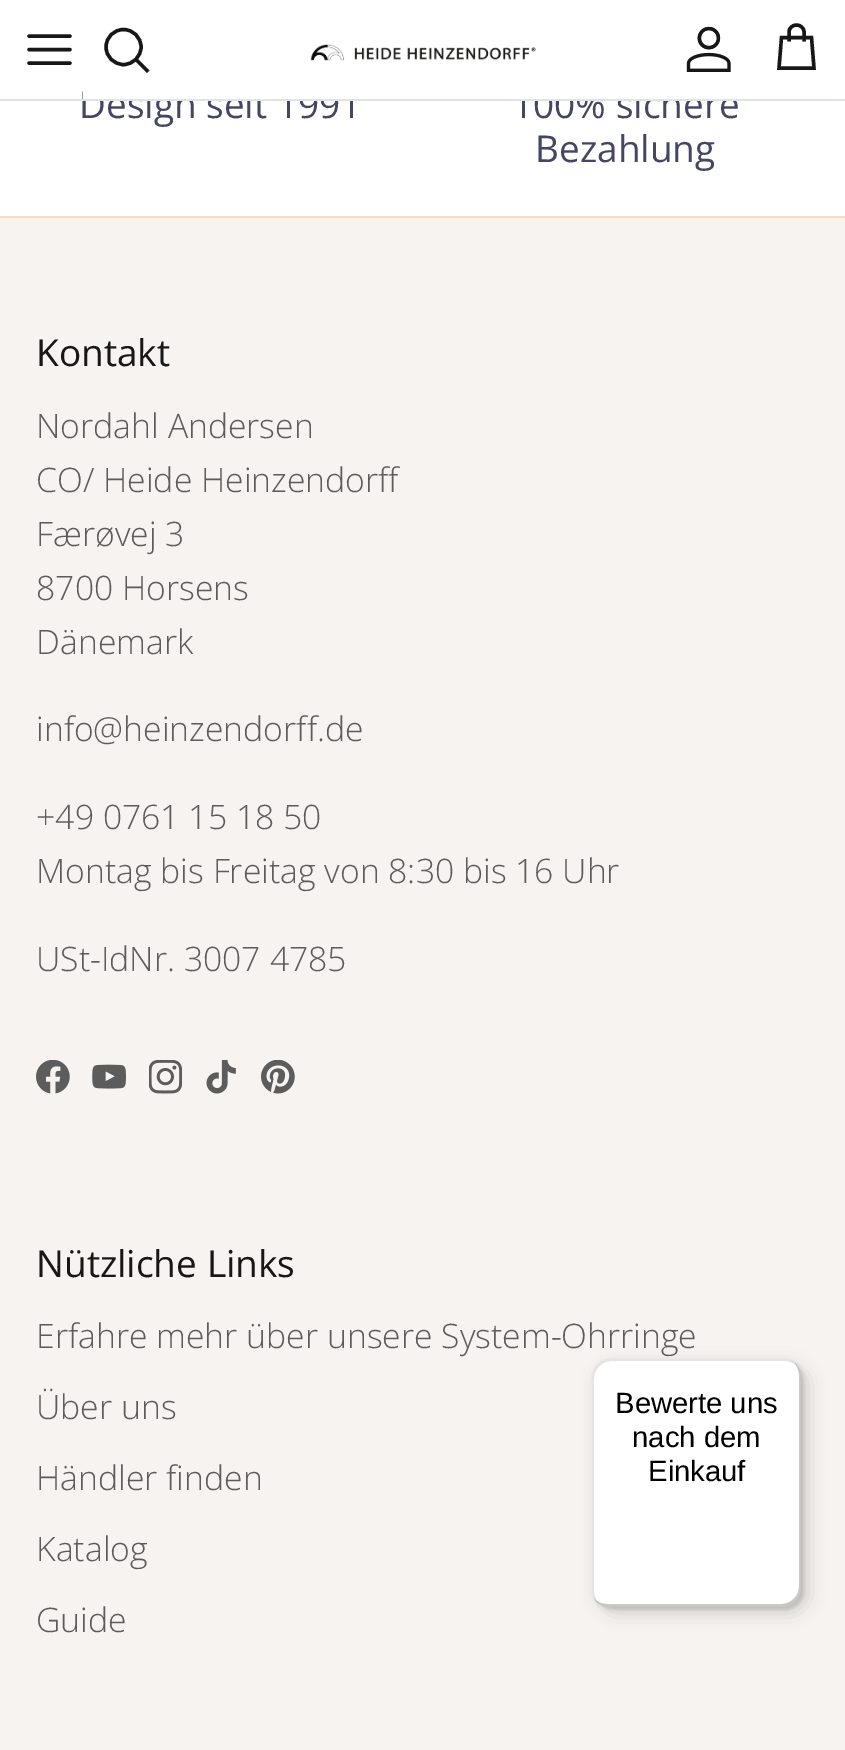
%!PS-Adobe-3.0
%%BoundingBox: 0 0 845 1750
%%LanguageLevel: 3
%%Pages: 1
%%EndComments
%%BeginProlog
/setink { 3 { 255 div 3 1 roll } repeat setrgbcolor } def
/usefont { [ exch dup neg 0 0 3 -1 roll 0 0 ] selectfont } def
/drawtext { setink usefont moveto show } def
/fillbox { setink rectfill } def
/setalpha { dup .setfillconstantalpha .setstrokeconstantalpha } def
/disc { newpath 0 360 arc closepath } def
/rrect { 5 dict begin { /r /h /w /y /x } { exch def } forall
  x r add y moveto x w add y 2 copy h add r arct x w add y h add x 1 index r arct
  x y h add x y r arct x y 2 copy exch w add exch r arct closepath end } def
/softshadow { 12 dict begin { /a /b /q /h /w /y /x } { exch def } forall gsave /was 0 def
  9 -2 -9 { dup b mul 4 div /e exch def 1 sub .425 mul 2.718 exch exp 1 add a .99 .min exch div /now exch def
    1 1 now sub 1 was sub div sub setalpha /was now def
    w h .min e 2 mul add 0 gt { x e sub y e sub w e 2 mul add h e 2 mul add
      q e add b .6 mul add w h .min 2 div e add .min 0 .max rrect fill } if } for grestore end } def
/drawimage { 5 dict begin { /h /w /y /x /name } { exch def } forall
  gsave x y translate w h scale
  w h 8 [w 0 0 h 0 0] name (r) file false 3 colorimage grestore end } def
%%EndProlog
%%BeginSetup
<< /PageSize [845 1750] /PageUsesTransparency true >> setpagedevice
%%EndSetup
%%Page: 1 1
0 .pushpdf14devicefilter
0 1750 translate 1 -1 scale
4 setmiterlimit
0 0 845 1750 255 255 255 fillbox
(Design seit 1991) 79 118 /OpenSans-Regular 37 69 69 100 drawtext
(100% sichere) 512 118 /OpenSans-Regular 37 69 69 100 drawtext
83 89 651 10 255 255 255 fillbox
0 99 845 2 223 227 232 fillbox
23 23 23 setink
3.4 setlinewidth
1 setlinecap
1 setlinejoin
29 49.5 moveto 70 49.5 lineto 29 36 moveto 70 36 lineto 29 63 moveto 70 63 lineto stroke
0 setlinecap
0 setlinejoin
123.5 47 17.5 disc stroke
2 setlinecap
137 60.5 moveto 147 70.5 lineto stroke
(assets/img1.rgb) 310 44 226 17 drawimage
(assets/img2.rgb) 686 26 45 46 drawimage
0 setlinecap
804 41.5 moveto 804 32 lineto 804 28 800.5 25 796.5 25 curveto 792.5 25 789 28 789 32 curveto 789 41.5 lineto 781.5 37.5 moveto 811.5 37.5 lineto 814 68 lineto 779 68 lineto closepath stroke
(Bezahlung) 535 162 /OpenSans-Regular 37 69 69 100 drawtext
0 218 845 1532 247 243 240 fillbox
0 216 845 2 239 223 199 fillbox
(Kontakt) 36 366 /OpenSans-Regular 37 23 23 23 drawtext
(Nordahl Andersen) 36 438 /OpenSans-Light 33.75 92 92 92 drawtext
(CO/ Heide Heinzendorff) 36 492 /OpenSans-Light 33.75 92 92 92 drawtext
(Færøvej 3) 36 546 /OpenSans-Light 33.75 92 92 92 drawtext
(8700 Horsens) 36 600 /OpenSans-Light 33.75 92 92 92 drawtext
(Dänemark) 36 654 /OpenSans-Light 33.75 92 92 92 drawtext
(info@heinzendorff.de) 36 741 /OpenSans-Light 33.75 92 92 92 drawtext
(+49 0761 15 18 50) 36 829 /OpenSans-Light 33.75 92 92 92 drawtext
(Montag bis Freitag von 8:30 bis 16 Uhr) 36 883 /OpenSans-Light 33.75 92 92 92 drawtext
(USt-IdNr. 3007 4785) 36 971 /OpenSans-Light 33.75 92 92 92 drawtext
(assets/img3.rgb) 36 1060 34 34 drawimage
(assets/img4.rgb) 92 1064 34 25 drawimage
(assets/img5.rgb) 149 1060 33 34 drawimage
(assets/img6.rgb) 206 1060 30 34 drawimage
(assets/img7.rgb) 261 1060 34 34 drawimage
(Nützliche Links) 36 1277 /OpenSans-Regular 37 23 23 23 drawtext
(Erfahre mehr über unsere System-Ohrringe) 36 1348 /OpenSans-Light 33.75 92 92 92 drawtext
(Über uns) 36 1419 /OpenSans-Light 33.75 92 92 92 drawtext
(Händler finden) 36 1490 /OpenSans-Light 33.75 92 92 92 drawtext
(Katalog) 36 1561 /OpenSans-Light 33.75 92 92 92 drawtext
(Guide) 36 1632 /OpenSans-Light 33.75 92 92 92 drawtext
0 0 0 setink
599 1366 209 247 18 9 0.15 softshadow
594 1361 209 248 18 2 0.15 softshadow
255 255 255 setink
592 1359 209 248 18 rrect fill
0.1 setalpha
0 0 0 setink
612 1361 moveto 785 1361 lineto 789 1361 793 1363 797 1365 curveto 793 1361 788 1359 783 1359 curveto 610 1359 lineto 600 1359 592 1367 592 1377 curveto 592 1589 lineto 592 1594 594 1599 598 1603 curveto 596 1599 594 1595 594 1591 curveto 594 1379 lineto 594 1369 602 1361 612 1361 curveto closepath fill
0.2 setalpha
594 1598 moveto 597 1603 603 1607 610 1607 curveto 783 1607 lineto 793 1607 801 1599 801 1589 curveto 801 1377 lineto 801 1372 799 1367 795 1363 curveto 797 1367 799 1371 799 1375 curveto 799 1586 lineto 799 1596 791 1604 781 1604 curveto 608 1604 lineto 602 1604 597 1602 594 1598 curveto closepath fill
50 50 50 setink
596 1601 moveto 600 1605 605 1607 610 1607 curveto 783 1607 lineto 793 1607 801 1599 801 1589 curveto 801 1377 lineto 801 1372 799 1367 796 1364 curveto 798 1367 800 1371 800 1376 curveto 800 1587 lineto 800 1597 792 1605 782 1605 curveto 608 1605 lineto 604 1605 600 1603 596 1601 curveto closepath fill
0.3 setalpha
255 255 255 setink
594 1596 moveto 596 1603 603 1607 610 1607 curveto 783 1607 lineto 793 1607 801 1599 801 1589 curveto 801 1377 lineto 801 1372 799 1367 796 1364 curveto 798 1367 800 1371 800 1376 curveto 800 1587 lineto 800 1597 792 1605 782 1605 curveto 609 1605 lineto 602 1605 597 1601 594 1596 curveto closepath fill
1 setalpha
(Bewerte uns) 615 1413 /LiberationSans-Regular 29.25 0 0 0 drawtext
(nach dem) 632 1447 /LiberationSans-Regular 29.25 0 0 0 drawtext
(Einkauf) 648 1481 /LiberationSans-Regular 29.25 0 0 0 drawtext
.poppdf14devicefilter showpage
%%EOF
